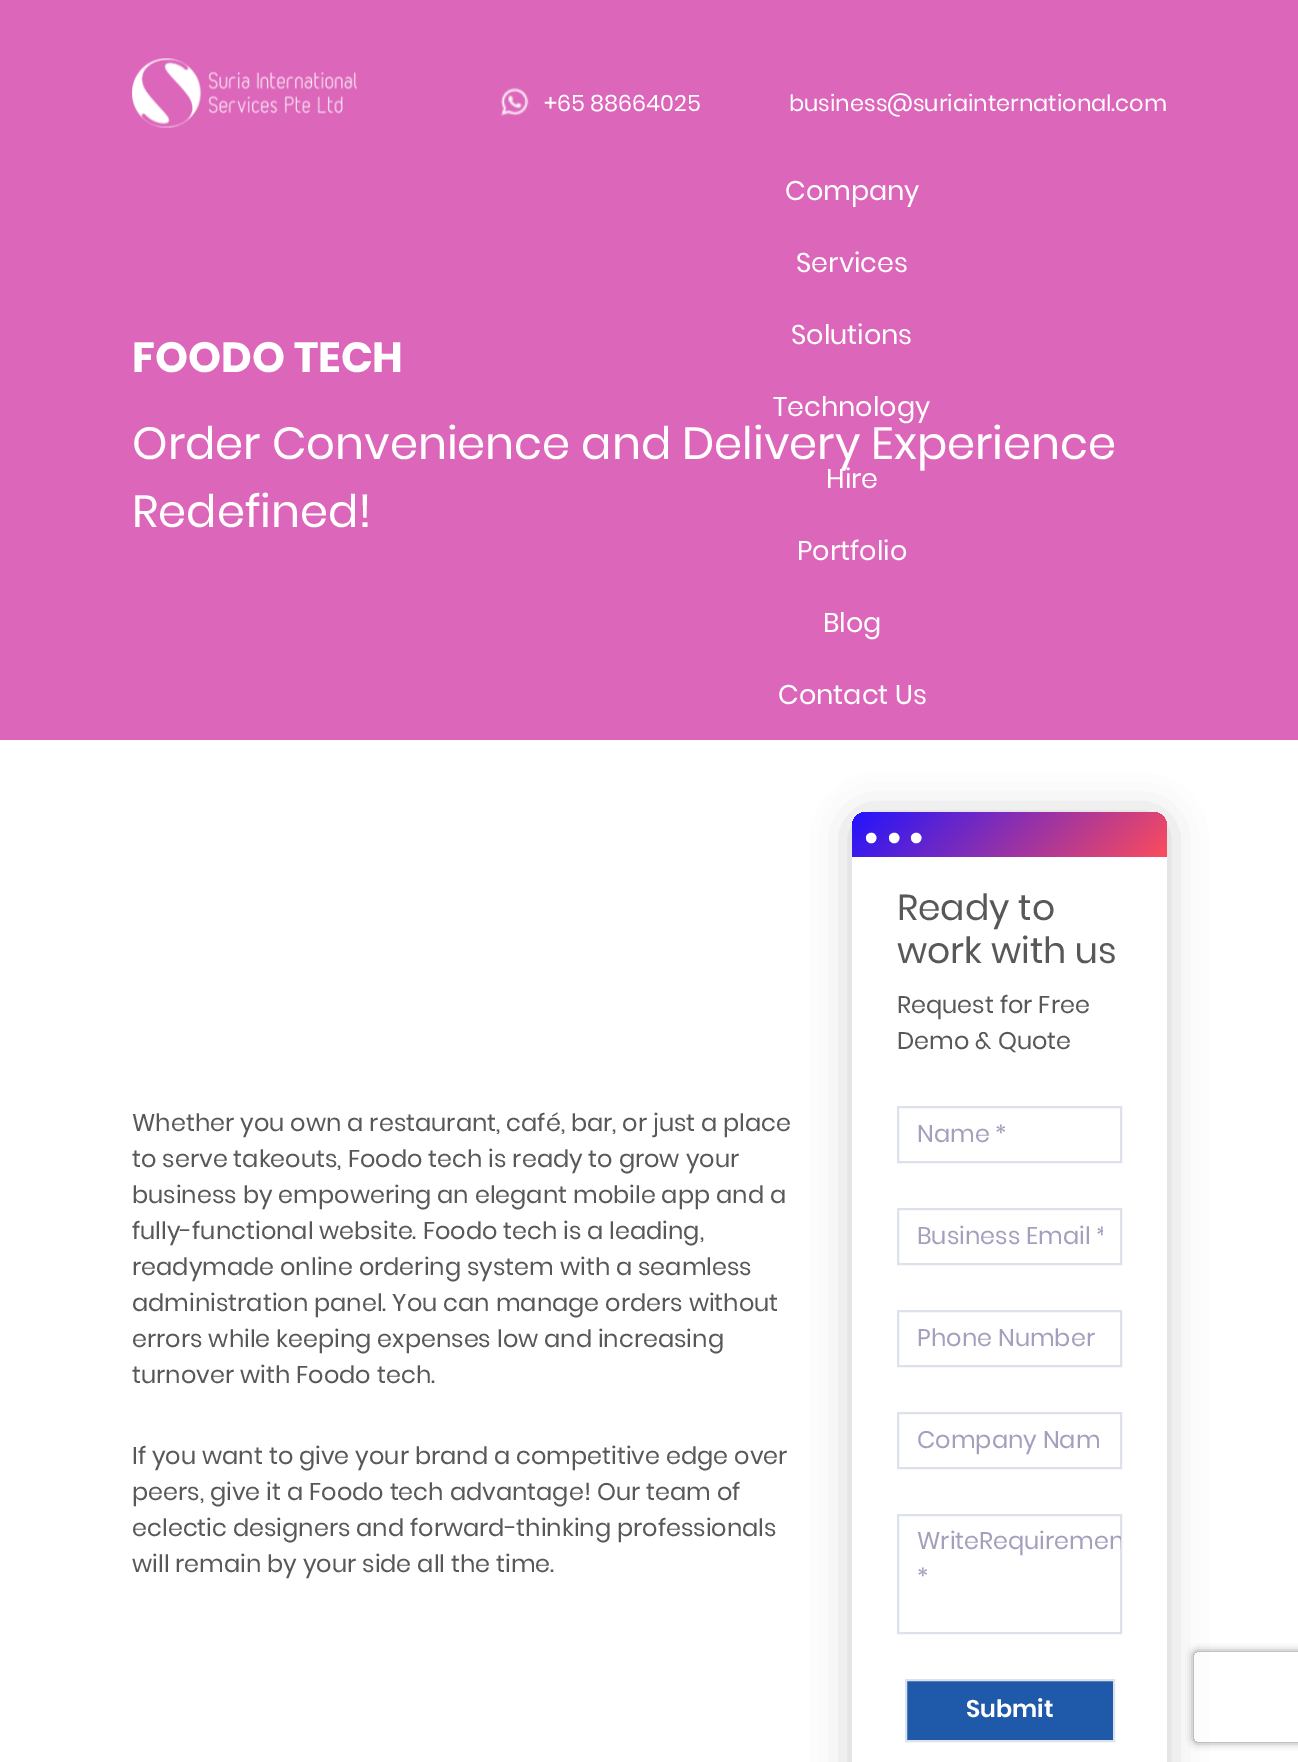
%!PS-Adobe-3.0
%%BoundingBox: 0 0 1298 1762
%%LanguageLevel: 3
%%Pages: 1
%%EndComments
%%BeginProlog
/setink { 3 { 255 div 3 1 roll } repeat setrgbcolor } def
/usefont { [ exch dup neg 0 0 3 -1 roll 0 0 ] selectfont } def
/drawtext { setink usefont moveto show } def
/fillbox { setink rectfill } def
/setalpha { dup .setfillconstantalpha .setstrokeconstantalpha } def
/rrect { 5 dict begin { /r /h /w /y /x } { exch def } forall
  x r add y moveto x w add y 2 copy h add r arct x w add y h add x 1 index r arct
  x y h add x y r arct x y 2 copy exch w add exch r arct closepath end } def
/softshadow { 12 dict begin { /a /b /q /h /w /y /x } { exch def } forall gsave /was 0 def
  9 -2 -9 { dup b mul 4 div /e exch def 1 sub .425 mul 2.718 exch exp 1 add a .99 .min exch div /now exch def
    1 1 now sub 1 was sub div sub setalpha /was now def
    w h .min e 2 mul add 0 gt { x e sub y e sub w e 2 mul add h e 2 mul add
      q e add b .6 mul add w h .min 2 div e add .min 0 .max rrect fill } if } for grestore end } def
/drawimage { 5 dict begin { /h /w /y /x /name } { exch def } forall
  gsave x y translate w h scale
  w h 8 [w 0 0 h 0 0] name (r) file false 3 colorimage grestore end } def
%%EndProlog
%%BeginSetup
<< /PageSize [1298 1762] /PageUsesTransparency true >> setpagedevice
%%EndSetup
%%Page: 1 1
0 .pushpdf14devicefilter
0 1762 translate 1 -1 scale
4 setmiterlimit
0 0 1298 1762 255 255 255 fillbox
0 0 1298 740 220 102 186 fillbox
(assets/img1.rgb) 132 58 225 70 drawimage
(assets/img2.rgb) 500 87 29 30 drawimage
(+65 88664025) 544 111 /Poppins-Regular 22.5 255 255 255 drawtext
(business@suriainternational.com) 789 111 /Poppins-Regular 22.5 255 255 255 drawtext
(Company) 785 200 /Poppins-Regular 27 255 255 255 drawtext
(Services) 796 272 /Poppins-Regular 27 255 255 255 drawtext
(Solutions) 791 344 /Poppins-Regular 27 255 255 255 drawtext
(Technology) 773 416 /Poppins-Regular 27 255 255 255 drawtext
(Hire) 826 488 /Poppins-Regular 27 255 255 255 drawtext
(Portfolio) 797 560 /Poppins-Regular 27 255 255 255 drawtext
(Blog) 823 632 /Poppins-Regular 27 255 255 255 drawtext
(Contact Us) 778 704 /Poppins-Regular 27 255 255 255 drawtext
(FOODO TECH) 132 372 /Poppins-Bold 42 255 255 255 drawtext
(Order Convenience and Delivery Experience) 132 459 /Poppins-Regular 45 255 255 255 drawtext
(Redefined!) 132 527 /Poppins-Regular 45 255 255 255 drawtext
(Whether you own a restaurant, café, bar, or just a place) 132 1131 /Poppins-Regular 24 88 88 88 drawtext
(to serve takeouts, Foodo tech is ready to grow your) 132 1167 /Poppins-Regular 24 88 88 88 drawtext
(business by empowering an elegant mobile app and a) 132 1203 /Poppins-Regular 24 88 88 88 drawtext
(fully-functional website. Foodo tech is a leading,) 132 1239 /Poppins-Regular 24 88 88 88 drawtext
(readymade online ordering system with a seamless) 132 1275 /Poppins-Regular 24 88 88 88 drawtext
(administration panel. You can manage orders without) 132 1311 /Poppins-Regular 24 88 88 88 drawtext
(errors while keeping expenses low and increasing) 132 1347 /Poppins-Regular 24 88 88 88 drawtext
(turnover with Foodo tech.) 132 1383 /Poppins-Regular 24 88 88 88 drawtext
(If you want to give your brand a competitive edge over) 132 1464 /Poppins-Regular 24 88 88 88 drawtext
(peers, give it a Foodo tech advantage! Our team of) 132 1500 /Poppins-Regular 24 88 88 88 drawtext
(eclectic designers and forward-thinking professionals) 132 1536 /Poppins-Regular 24 88 88 88 drawtext
(will remain by your side all the time.) 132 1572 /Poppins-Regular 24 88 88 88 drawtext
0 0 0 setink
852 815 315 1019 15 19 0.21 softshadow
255 255 255 setink
852 812 315 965 15 rrect fill
gsave 867 812 moveto 1152 812 lineto 1160.5 812 1167 818.5 1167 827 curveto 1167 857 lineto 852 857 lineto 852 827 lineto 852 818.5 858.5 812 867 812 curveto closepath clip newpath
<< /ShadingType 2 /ColorSpace /DeviceRGB /Coords [920 744 1100 924] /Extend [true true] /Function << /FunctionType 2 /Domain [0 1] /C0 [0.133 0.078 0.996] /C1 [0.988 0.298 0.365] /N 1 >> >> shfill grestore
(...) 860 842 /LiberationSerif-Regular 90 255 255 255 drawtext
(Ready to) 897 920 /Poppins-Regular 36 88 88 88 drawtext
(work with us) 897 963 /Poppins-Regular 36 88 88 88 drawtext
(Request for Free) 897 1013 /Poppins-Regular 24 88 88 88 drawtext
(Demo & Quote) 897 1049 /Poppins-Regular 24 88 88 88 drawtext
220 225 236 setink
2 setlinewidth
898 1107 223 55 rectstroke
(Name *) 917 1142 /Poppins-Regular 24 162 160 189 drawtext
220 225 236 setink
898 1209 223 55 rectstroke
gsave
917 1217 186 37 rectclip
(Business Email *) 917 1244 /Poppins-Regular 24 162 160 189 drawtext
grestore
898 1311 223 55 rectstroke
(Phone Number) 917 1346 /Poppins-Regular 24 162 160 189 drawtext
220 225 236 setink
898 1413 223 55 rectstroke
(Company Nam) 917 1448 /Poppins-Regular 24 162 160 189 drawtext
220 225 236 setink
898 1515 223 118 rectstroke
(Write) 917 1549 /Poppins-Regular 24 162 160 189 drawtext
gsave
899 1515 222 117 rectclip
(Requiremen) 979 1549 /Poppins-Regular 24 162 160 189 drawtext
grestore
(*) 917 1585 /Poppins-Regular 24 162 160 189 drawtext
31 90 170 setink
906 1680 moveto 1114 1680 lineto 1114 1741 lineto 906 1741 lineto closepath gsave fill grestore
220 225 236 setink
stroke
(Submit) 966 1717 /Poppins-SemiBold 24 255 255 255 drawtext
gsave
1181 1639 moveto 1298 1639 lineto 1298 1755 lineto 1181 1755 lineto closepath 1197 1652 moveto 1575 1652 lineto 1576.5 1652 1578 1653.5 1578 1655 curveto 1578 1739 lineto 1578 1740.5 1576.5 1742 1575 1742 curveto 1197 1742 lineto 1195.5 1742 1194 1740.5 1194 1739 curveto 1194 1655 lineto 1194 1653.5 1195.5 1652 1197 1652 curveto closepath eoclip newpath
128 128 128 setink
1194 1652 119 90 3 4 1 softshadow
grestore
.poppdf14devicefilter showpage
%%EOF
